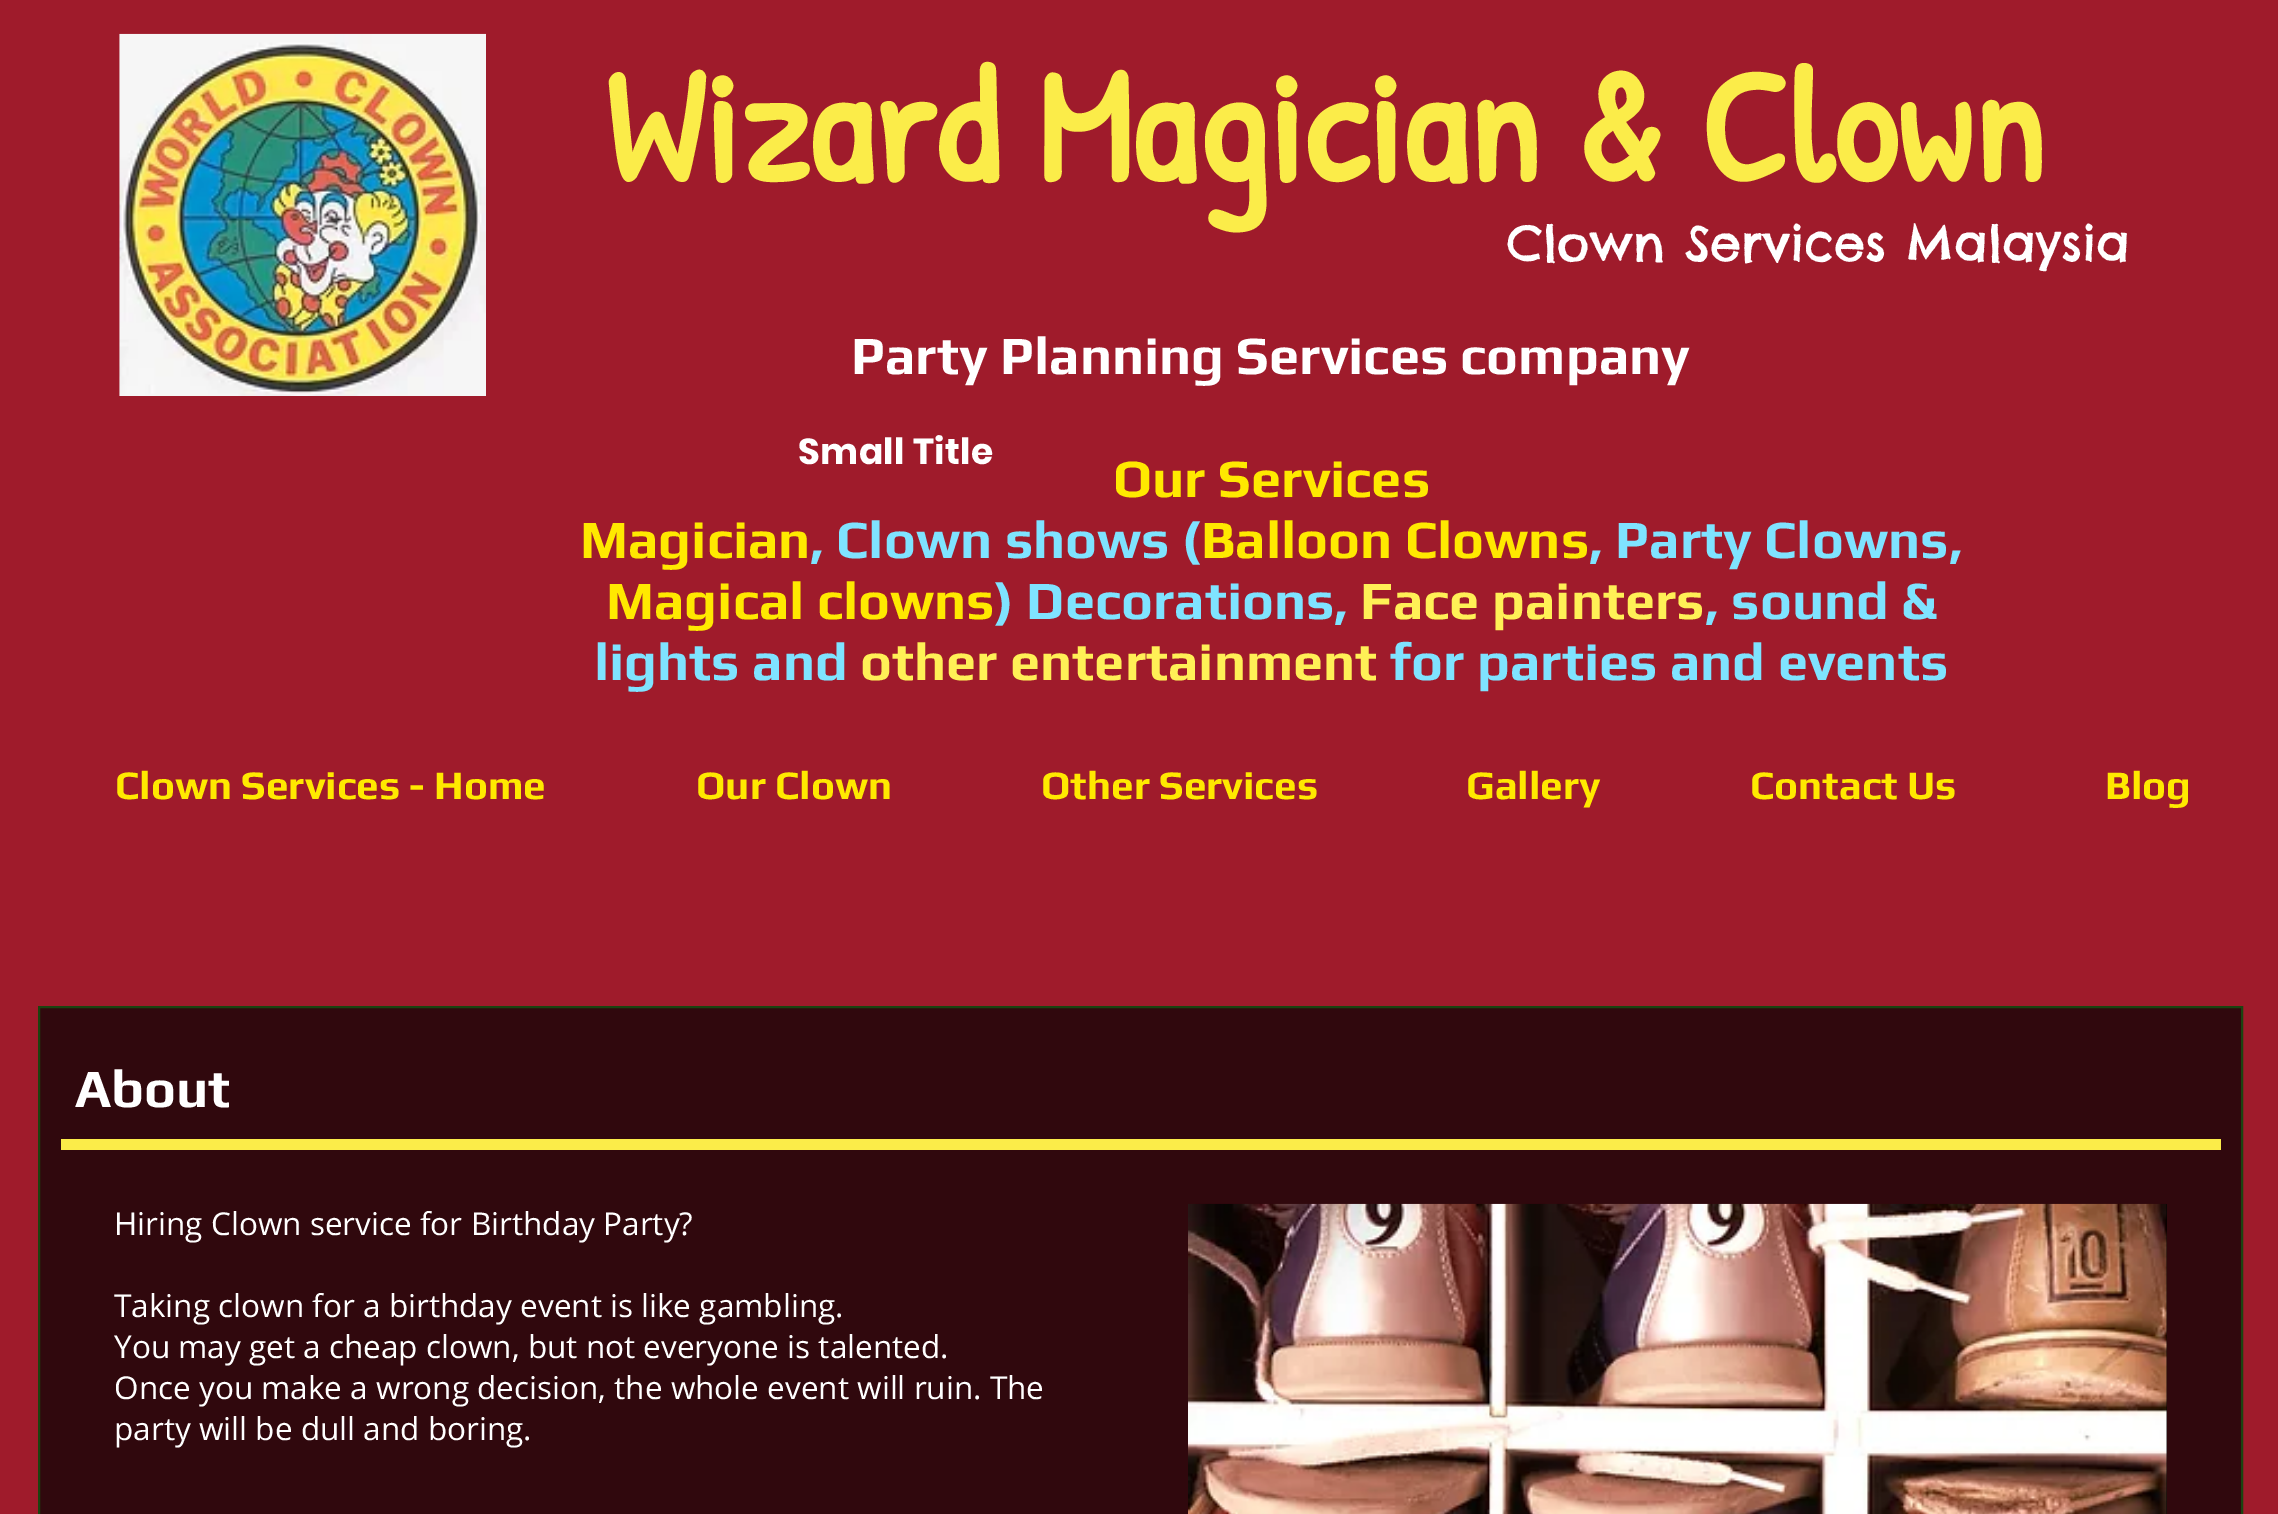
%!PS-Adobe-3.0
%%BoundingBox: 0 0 2278 1514
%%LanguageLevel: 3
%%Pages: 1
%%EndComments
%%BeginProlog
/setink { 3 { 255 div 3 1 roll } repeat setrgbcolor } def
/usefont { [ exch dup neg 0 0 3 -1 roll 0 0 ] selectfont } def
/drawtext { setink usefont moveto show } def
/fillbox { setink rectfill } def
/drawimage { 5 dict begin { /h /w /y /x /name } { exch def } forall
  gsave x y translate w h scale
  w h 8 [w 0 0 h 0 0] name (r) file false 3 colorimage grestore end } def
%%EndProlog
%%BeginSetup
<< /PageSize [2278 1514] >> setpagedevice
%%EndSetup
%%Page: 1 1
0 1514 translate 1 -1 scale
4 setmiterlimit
0 0 2278 1514 159 27 43 fillbox
(assets/img1.rgb) 119 33 367 363 drawimage
(Wizard Magician & Clown) 604 182 /PatrickHand-Bold 162 251 236 73 drawtext
(Clown Services Malaysia) 1507 261 /ChelseaMarket-Regular 49.5 255 255 255 drawtext
(Party Planning Services company) 851 374 /Play-Bold 54 255 255 255 drawtext
/Poppins-Bold 36 usefont
798 464 moveto 0.4 0 (Small Title) ashow
(Our Services) 1113 497 /Play-Bold 54 255 233 0 drawtext
(Magician) 580 558 /Play-Bold 54 255 233 0 drawtext
(, Clown shows \() 810 558 /Play-Bold 54 127 227 255 drawtext
(Balloon Clowns) 1201 558 /Play-Bold 54 255 233 0 drawtext
(, Party Clowns,) 1589 558 /Play-Bold 54 127 227 255 drawtext
(Magical clowns) 606 619 /Play-Bold 54 255 233 0 drawtext
(\) Decorations,) 995 619 /Play-Bold 54 127 227 255 drawtext
(Face painters) 1360 619 /Play-Bold 54 255 240 86 drawtext
(, sound &) 1705 619 /Play-Bold 54 127 227 255 drawtext
(lights and) 594 680 /Play-Bold 54 127 227 255 drawtext
(other entertainment) 860 680 /Play-Bold 54 255 240 86 drawtext
(for parties and events) 1390 680 /Play-Bold 54 127 227 255 drawtext
(Clown Services - Home) 115 799 /Play-Bold 40.5 255 233 0 drawtext
(Our Clown) 696 799 /Play-Bold 40.5 255 233 0 drawtext
(Other Services) 1041 799 /Play-Bold 40.5 255 233 0 drawtext
(Gallery) 1466 799 /Play-Bold 40.5 255 233 0 drawtext
(Contact Us) 1750 799 /Play-Bold 40.5 255 233 0 drawtext
(Blog) 2105 799 /Play-Bold 40.5 255 233 0 drawtext
48 8 13 setink
39 1007 moveto 2242 1007 lineto 2242 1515 lineto 39 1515 lineto closepath gsave fill grestore
27 68 16 setink
2 setlinewidth
stroke
(About) 75 1107 /Play-Bold 54 255 255 255 drawtext
61 1139 2160 11 251 236 73 fillbox
(Hiring Clown service for Birthday Party?) 114 1235 /OpenSans-Regular 31.5 255 255 255 drawtext
(Taking clown for a birthday event is like gambling.) 114 1317 /OpenSans-Regular 31.5 255 255 255 drawtext
(You may get a cheap clown, but not everyone is talented.) 114 1358 /OpenSans-Regular 31.5 255 255 255 drawtext
(Once you make a wrong decision, the whole event will ruin. The) 114 1399 /OpenSans-Regular 31.5 255 255 255 drawtext
(party will be dull and boring.) 114 1440 /OpenSans-Regular 31.5 255 255 255 drawtext
2166 1204 1 310 0 0 0 fillbox
(assets/img2.rgb) 1188 1203 979 311 drawimage
showpage
%%EOF
